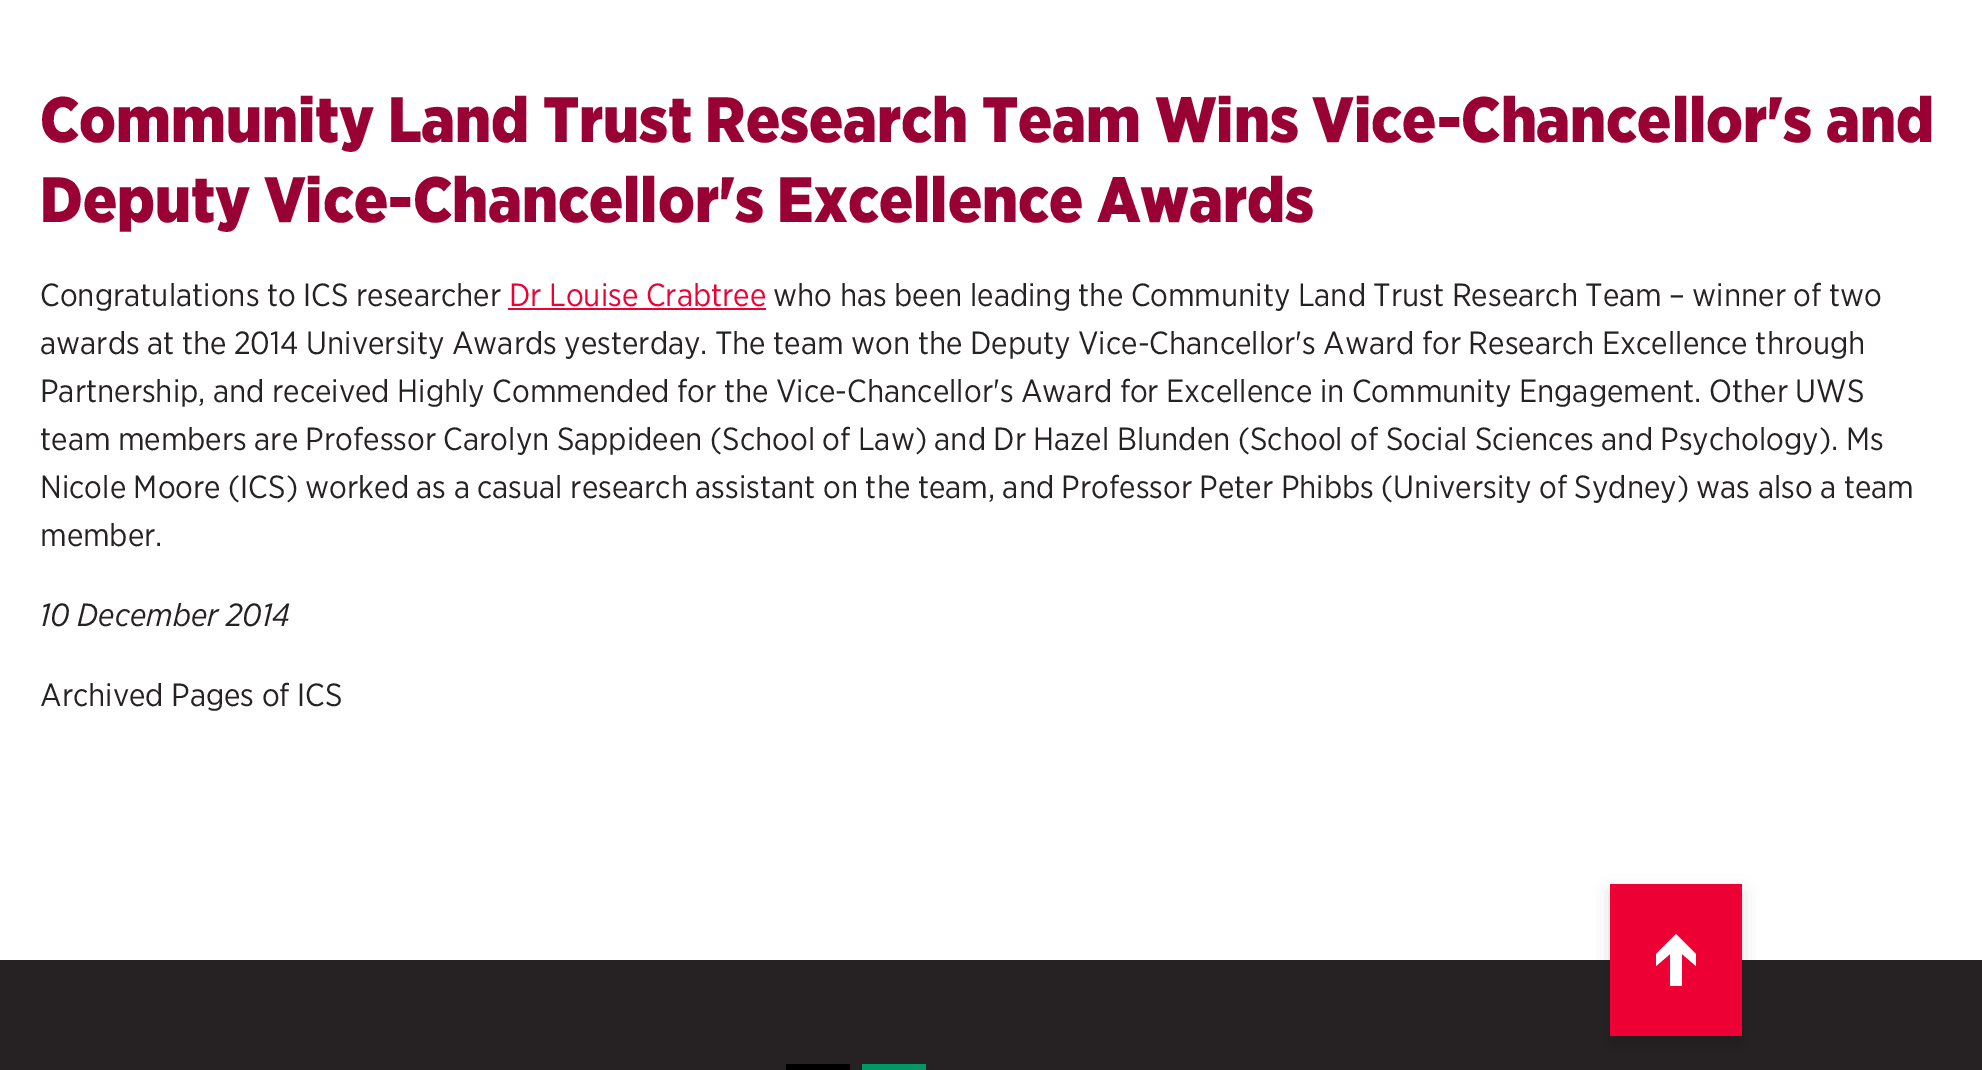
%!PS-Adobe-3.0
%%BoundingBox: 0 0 1982 1070
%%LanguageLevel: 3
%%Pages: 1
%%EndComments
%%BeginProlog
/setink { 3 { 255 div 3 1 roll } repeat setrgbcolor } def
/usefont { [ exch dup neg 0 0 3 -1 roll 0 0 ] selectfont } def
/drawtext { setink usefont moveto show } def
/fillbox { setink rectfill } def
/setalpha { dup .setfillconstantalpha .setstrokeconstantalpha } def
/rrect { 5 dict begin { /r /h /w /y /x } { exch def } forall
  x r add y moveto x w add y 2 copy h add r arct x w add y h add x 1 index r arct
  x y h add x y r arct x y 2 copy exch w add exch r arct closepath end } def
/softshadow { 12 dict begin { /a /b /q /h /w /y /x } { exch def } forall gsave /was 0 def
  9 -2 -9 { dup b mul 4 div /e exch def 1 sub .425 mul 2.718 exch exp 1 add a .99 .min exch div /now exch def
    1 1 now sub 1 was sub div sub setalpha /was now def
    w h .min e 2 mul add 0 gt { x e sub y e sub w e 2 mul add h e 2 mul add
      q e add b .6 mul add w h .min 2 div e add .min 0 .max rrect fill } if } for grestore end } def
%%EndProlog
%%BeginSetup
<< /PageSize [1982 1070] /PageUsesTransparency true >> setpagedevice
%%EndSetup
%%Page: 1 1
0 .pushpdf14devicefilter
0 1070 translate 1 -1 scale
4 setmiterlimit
0 0 1982 1070 255 255 255 fillbox
(Community Land Trust Research Team Wins Vice-Chancellor's and) 40 142 /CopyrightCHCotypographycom-Regular 64 153 0 51 drawtext
(Deputy Vice-Chancellor's Excellence Awards) 40 222 /CopyrightCHCotypographycom-Regular 64 153 0 51 drawtext
(Congratulations to ICS researcher) 40 306 /CopyrightCHCotypographycom-Light 32 38 34 35 drawtext
(Dr Louise Crabtree) 509 306 /CopyrightCHCotypographycom-Light 32 237 0 51 drawtext
508 308 258 2 237 0 51 fillbox
(who has been leading the Community Land Trust Research Team – winner of two) 773 306 /CopyrightCHCotypographycom-Light 32 38 34 35 drawtext
(awards at the 2014 University Awards yesterday. The team won the Deputy Vice-Chancellor's Award for Research Excellence through) 40 354 /CopyrightCHCotypographycom-Light 32 38 34 35 drawtext
(Partnership, and received Highly Commended for the Vice-Chancellor's Award for Excellence in Community Engagement. Other UWS) 40 402 /CopyrightCHCotypographycom-Light 32 38 34 35 drawtext
(team members are Professor Carolyn Sappideen \(School of Law\) and Dr Hazel Blunden \(School of Social Sciences and Psychology\). Ms) 40 450 /CopyrightCHCotypographycom-Light 32 38 34 35 drawtext
(Nicole Moore \(ICS\) worked as a casual research assistant on the team, and Professor Peter Phibbs \(University of Sydney\) was also a team) 40 498 /CopyrightCHCotypographycom-Light 32 38 34 35 drawtext
(member.) 40 546 /CopyrightCHCotypographycom-Light 32 38 34 35 drawtext
(10 December 2014) 40 626 /CopyrightCHCotypographycom-LightItalic 32 38 34 35 drawtext
(Archived Pages of ICS) 40 706 /CopyrightCHCotypographycom-Light 32 38 34 35 drawtext
0 960 1982 110 38 34 35 fillbox
786 1064 64 6 0 0 0 fillbox
862 1064 64 6 0 152 101 fillbox
0 0 0 setink
1610 892 132 152 0 8 0.15 softshadow
1610 884 132 152 237 0 51 fillbox
255 255 255 setink
1676 934 moveto 1656 954 lineto 1656 966 lineto 1670 954 lineto 1670 986 lineto 1682 986 lineto 1682 954 lineto 1696 966 lineto 1696 954 lineto closepath fill
.poppdf14devicefilter showpage
%%EOF
